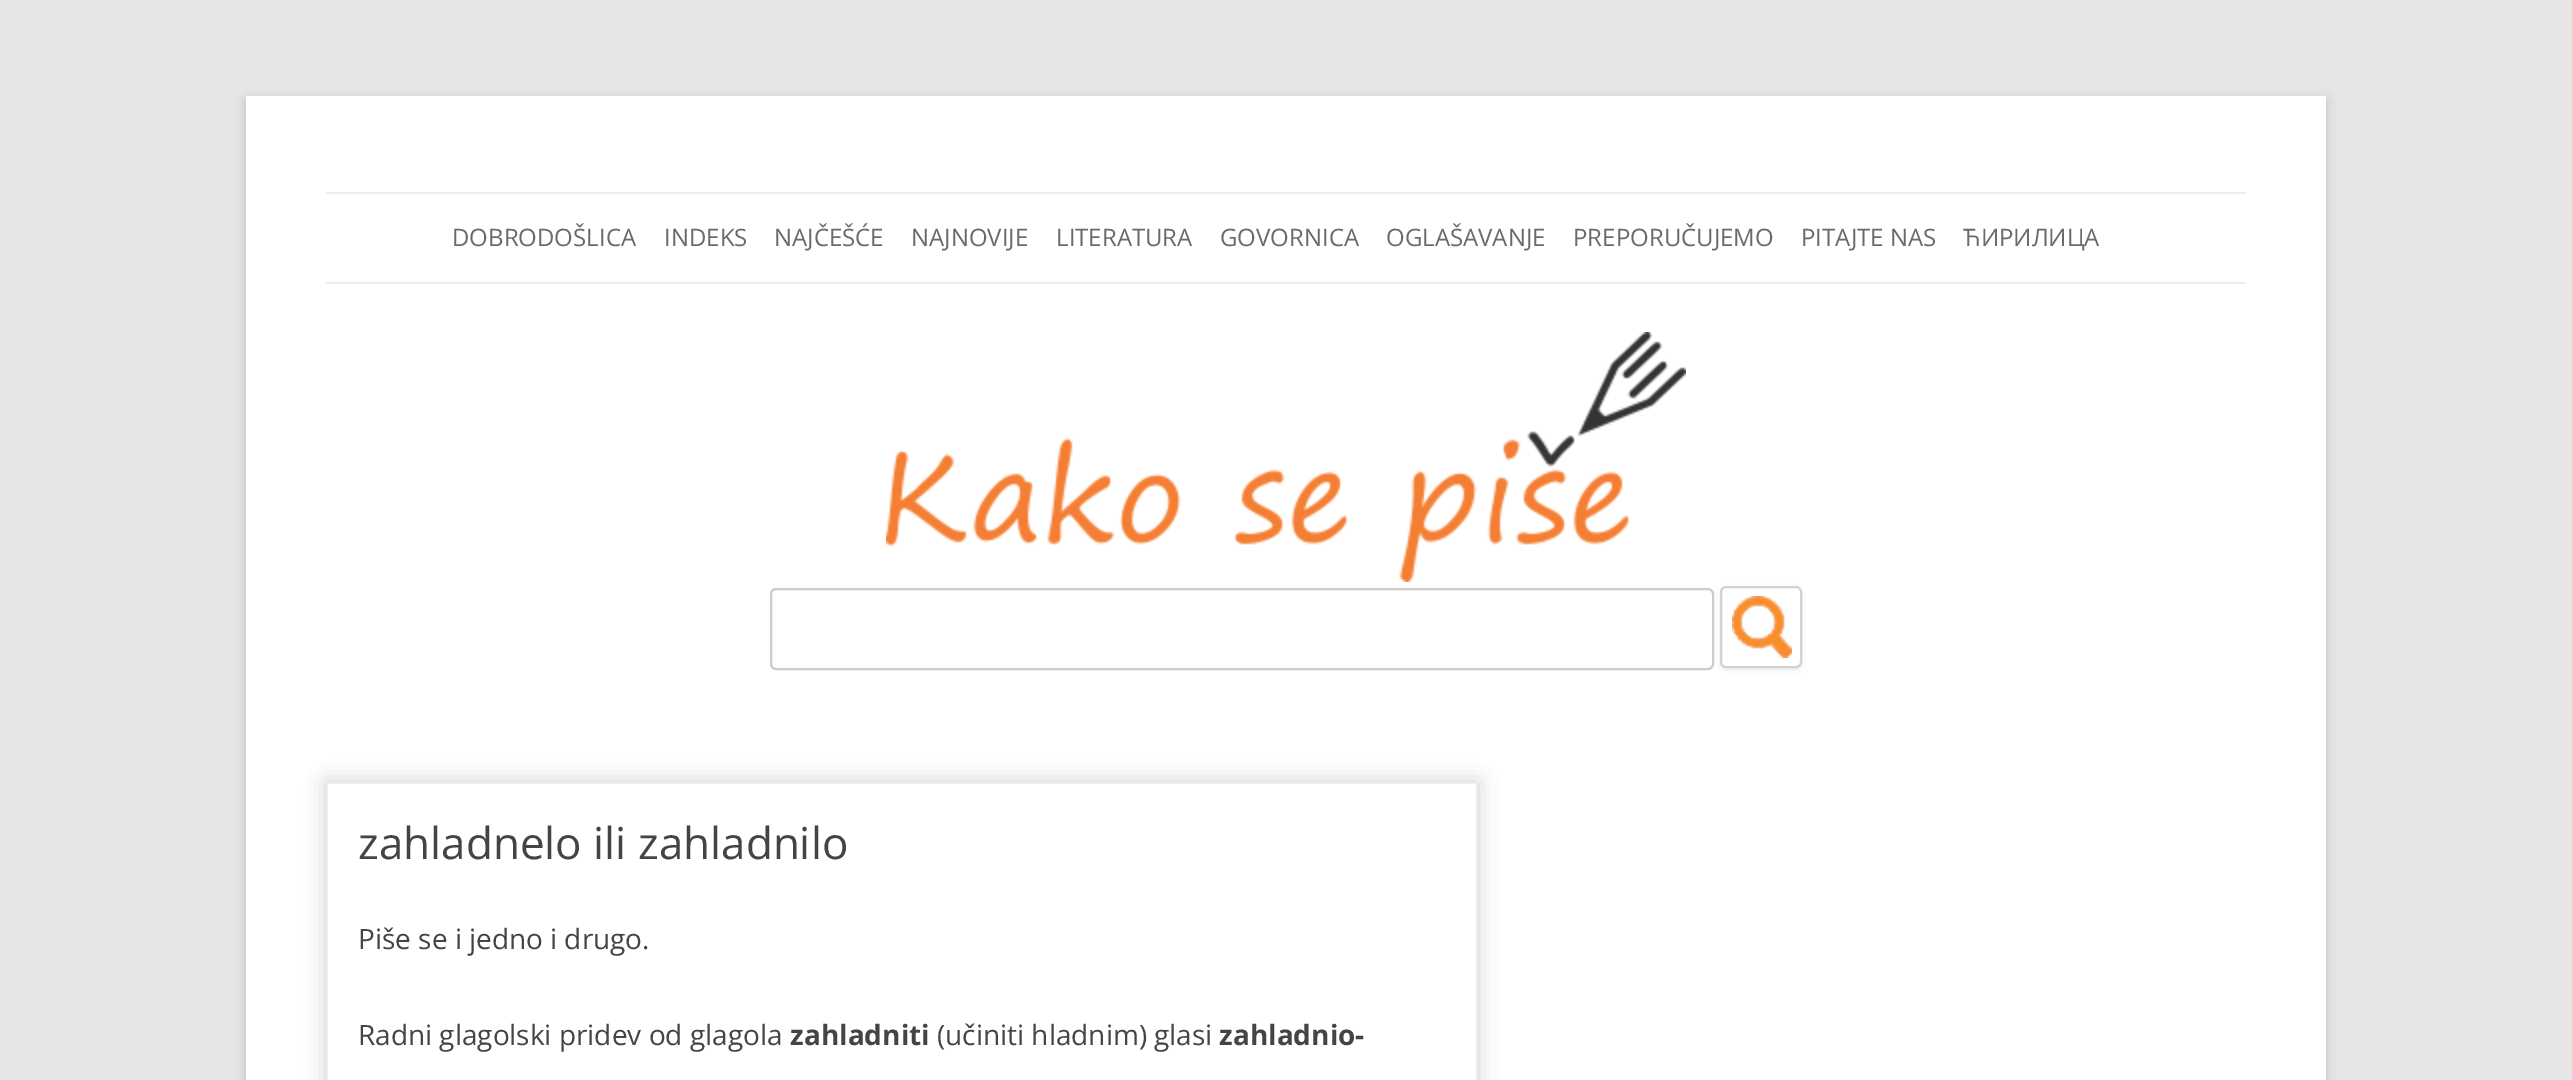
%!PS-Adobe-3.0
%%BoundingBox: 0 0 2572 1080
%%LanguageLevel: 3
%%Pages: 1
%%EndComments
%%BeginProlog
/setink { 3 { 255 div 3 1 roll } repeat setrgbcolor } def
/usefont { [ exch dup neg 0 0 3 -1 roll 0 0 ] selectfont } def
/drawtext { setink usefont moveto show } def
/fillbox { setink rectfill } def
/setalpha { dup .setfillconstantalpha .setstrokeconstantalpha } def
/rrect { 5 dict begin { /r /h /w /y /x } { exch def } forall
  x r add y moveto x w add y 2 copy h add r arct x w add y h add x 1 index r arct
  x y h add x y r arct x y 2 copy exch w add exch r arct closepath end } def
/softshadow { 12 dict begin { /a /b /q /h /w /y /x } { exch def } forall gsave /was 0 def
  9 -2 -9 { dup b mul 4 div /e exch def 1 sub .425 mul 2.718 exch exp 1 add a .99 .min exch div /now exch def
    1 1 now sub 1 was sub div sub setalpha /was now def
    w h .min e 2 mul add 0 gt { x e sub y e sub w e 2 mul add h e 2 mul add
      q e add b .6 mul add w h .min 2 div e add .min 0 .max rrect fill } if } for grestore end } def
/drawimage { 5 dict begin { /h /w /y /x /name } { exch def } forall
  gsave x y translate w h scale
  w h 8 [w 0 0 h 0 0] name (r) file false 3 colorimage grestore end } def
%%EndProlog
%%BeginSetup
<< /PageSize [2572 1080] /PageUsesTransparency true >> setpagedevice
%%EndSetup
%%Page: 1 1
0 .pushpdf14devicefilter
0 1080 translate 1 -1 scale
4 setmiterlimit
0 0 2572 1080 230 230 230 fillbox
100 100 100 setink
246 100 2080 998 0 6 0.3 softshadow
246 96 2080 984 255 255 255 fillbox
326 192 1920 2 237 237 237 fillbox
326 282 1920 2 237 237 237 fillbox
(DOBRODOŠLICA) 452 246 /OpenSans-Regular 24 106 106 106 drawtext
(INDEKS) 664 246 /OpenSans-Regular 24 106 106 106 drawtext
(NAJČEŠĆE) 774 246 /OpenSans-Regular 24 106 106 106 drawtext
(NAJNOVIJE) 911 246 /OpenSans-Regular 24 106 106 106 drawtext
(LITERATURA) 1056 246 /OpenSans-Regular 24 106 106 106 drawtext
(GOVORNICA) 1220 246 /OpenSans-Regular 24 106 106 106 drawtext
(OGLAŠAVANJE) 1386 246 /OpenSans-Regular 24 106 106 106 drawtext
(PREPORUČUJEMO) 1573 246 /OpenSans-Regular 24 106 106 106 drawtext
(PITAJTE NAS) 1801 246 /OpenSans-Regular 24 106 106 106 drawtext
(ЋИРИЛИЦА) 1963 246 /OpenSans-Regular 24 106 106 106 drawtext
(assets/img1.rgb) 886 332 800 250 drawimage
204 204 204 setink
2 setlinewidth
771 589 942 80 5 rrect stroke
gsave
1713 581 moveto 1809 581 lineto 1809 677 lineto 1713 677 lineto closepath 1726 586 moveto 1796 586 lineto 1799.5 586 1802 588.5 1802 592 curveto 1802 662 lineto 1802 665.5 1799.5 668 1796 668 curveto 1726 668 lineto 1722.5 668 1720 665.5 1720 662 curveto 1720 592 lineto 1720 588.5 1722.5 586 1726 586 curveto closepath eoclip newpath
64 64 64 setink
1720 588 82 82 6 2 0.1 softshadow
grestore
(assets/img2.rgb) 1732 596 60 62 drawimage
210 210 210 setink
1721 587 80 80 5 rrect stroke
gsave
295 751 moveto 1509 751 lineto 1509 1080 lineto 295 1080 lineto closepath 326 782 moveto 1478 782 lineto 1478 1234 lineto 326 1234 lineto closepath eoclip newpath
204 204 204 setink
326 782 1152 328 0 10 1 softshadow
grestore
326 782 1152 2 237 237 237 fillbox
1476 782 2 298 237 237 237 fillbox
326 782 2 298 237 237 237 fillbox
(zahladnelo ili zahladnilo) 358 859 /OpenSans-Regular 44 68 68 68 drawtext
(Piše se i jedno i drugo.) 358 949 /OpenSans-Regular 28 68 68 68 drawtext
(Radni glagolski pridev od glagola) 358 1045 /OpenSans-Regular 28 68 68 68 drawtext
(zahladniti) 790 1045 /OpenSans-Bold 28 68 68 68 drawtext
(\(učiniti hladnim\) glasi) 937 1045 /OpenSans-Regular 28 68 68 68 drawtext
(zahladnio-) 1219 1045 /OpenSans-Bold 28 68 68 68 drawtext
.poppdf14devicefilter showpage
%%EOF
